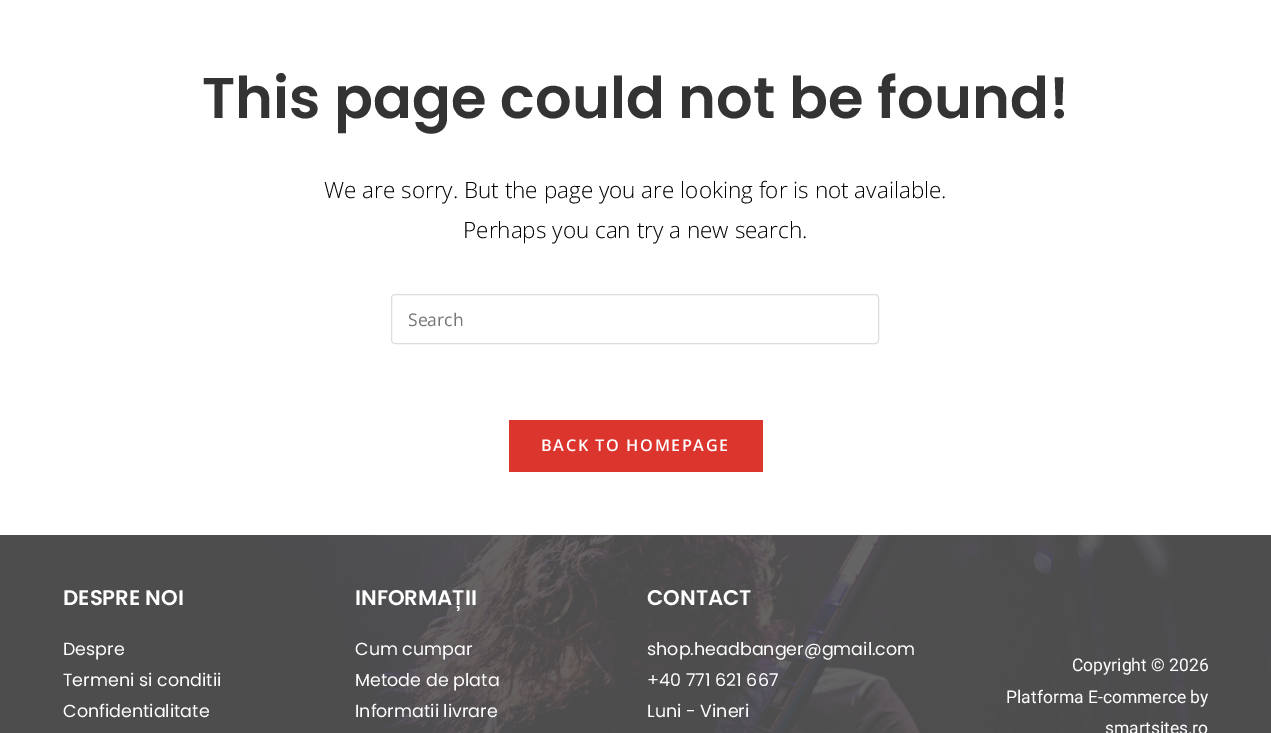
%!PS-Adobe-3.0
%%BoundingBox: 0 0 1271 733
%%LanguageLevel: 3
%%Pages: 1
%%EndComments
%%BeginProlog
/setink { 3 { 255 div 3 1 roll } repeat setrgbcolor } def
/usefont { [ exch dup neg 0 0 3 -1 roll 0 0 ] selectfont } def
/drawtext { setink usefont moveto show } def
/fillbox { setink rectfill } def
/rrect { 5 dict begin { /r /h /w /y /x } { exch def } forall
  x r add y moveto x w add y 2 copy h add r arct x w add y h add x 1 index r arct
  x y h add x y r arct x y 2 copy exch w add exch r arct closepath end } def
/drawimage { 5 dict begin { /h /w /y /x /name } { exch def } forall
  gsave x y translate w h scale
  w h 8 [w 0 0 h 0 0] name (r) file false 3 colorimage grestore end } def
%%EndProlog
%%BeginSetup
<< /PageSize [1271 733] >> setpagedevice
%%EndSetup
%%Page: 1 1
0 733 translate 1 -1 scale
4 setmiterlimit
0 0 1271 733 255 255 255 fillbox
(This page could not be found!) 202 118 /Poppins-SemiBold 57.5 51 51 51 drawtext
(We are sorry. But the page you are looking for is not available.) 324 198 /OpenSans-Light 22.5 0 0 0 drawtext
(Perhaps you can try a new search.) 463 238 /OpenSans-Light 22.5 0 0 0 drawtext
221 221 221 setink
391.5 294.5 487 49 3.5 rrect stroke
(Search) 408 326 /OpenSans-Regular 17.5 117 117 117 drawtext
509 420 254 52 220 53 46 fillbox
/OpenSans-SemiBold 16.25 usefont
255 255 255 setink
541 451 moveto 1.6 0 (BACK TO HOMEPAGE) ashow
0 535 1271 198 84 84 84 fillbox
(assets/img1.rgb) 0 535 1271 198 drawimage
(DESPRE NOI) 63 605 /Poppins-SemiBold 21.25 255 255 255 drawtext
(Despre) 63 655 /Poppins-Regular 17.5 255 255 255 drawtext
(Termeni si conditii) 63 686 /Poppins-Regular 17.5 255 255 255 drawtext
(Confidentialitate) 63 717 /Poppins-Regular 17.5 255 255 255 drawtext
(INFORMAȚII) 355 605 /Poppins-SemiBold 21.25 255 255 255 drawtext
(Cum cumpar) 355 655 /Poppins-Regular 17.5 255 255 255 drawtext
(Metode de plata) 355 686 /Poppins-Regular 17.5 255 255 255 drawtext
(Informatii livrare) 355 717 /Poppins-Regular 17.5 255 255 255 drawtext
(CONTACT) 647 605 /Poppins-SemiBold 21.25 255 255 255 drawtext
(shop.headbanger@gmail.com) 647 655 /Poppins-Regular 17.5 255 255 255 drawtext
(+40 771 621 667) 647 686 /Poppins-Regular 17.5 255 255 255 drawtext
(Luni - Vineri) 647 717 /Poppins-Regular 17.5 255 255 255 drawtext
(Copyright © 2026) 1072 671 /Roboto-Regular 17.5 255 255 255 drawtext
(Platforma E-commerce by) 1006 703 /Roboto-Regular 17.5 255 255 255 drawtext
(smartsites.ro) 1105 734 /Roboto-Regular 17.5 255 255 255 drawtext
showpage
%%EOF
